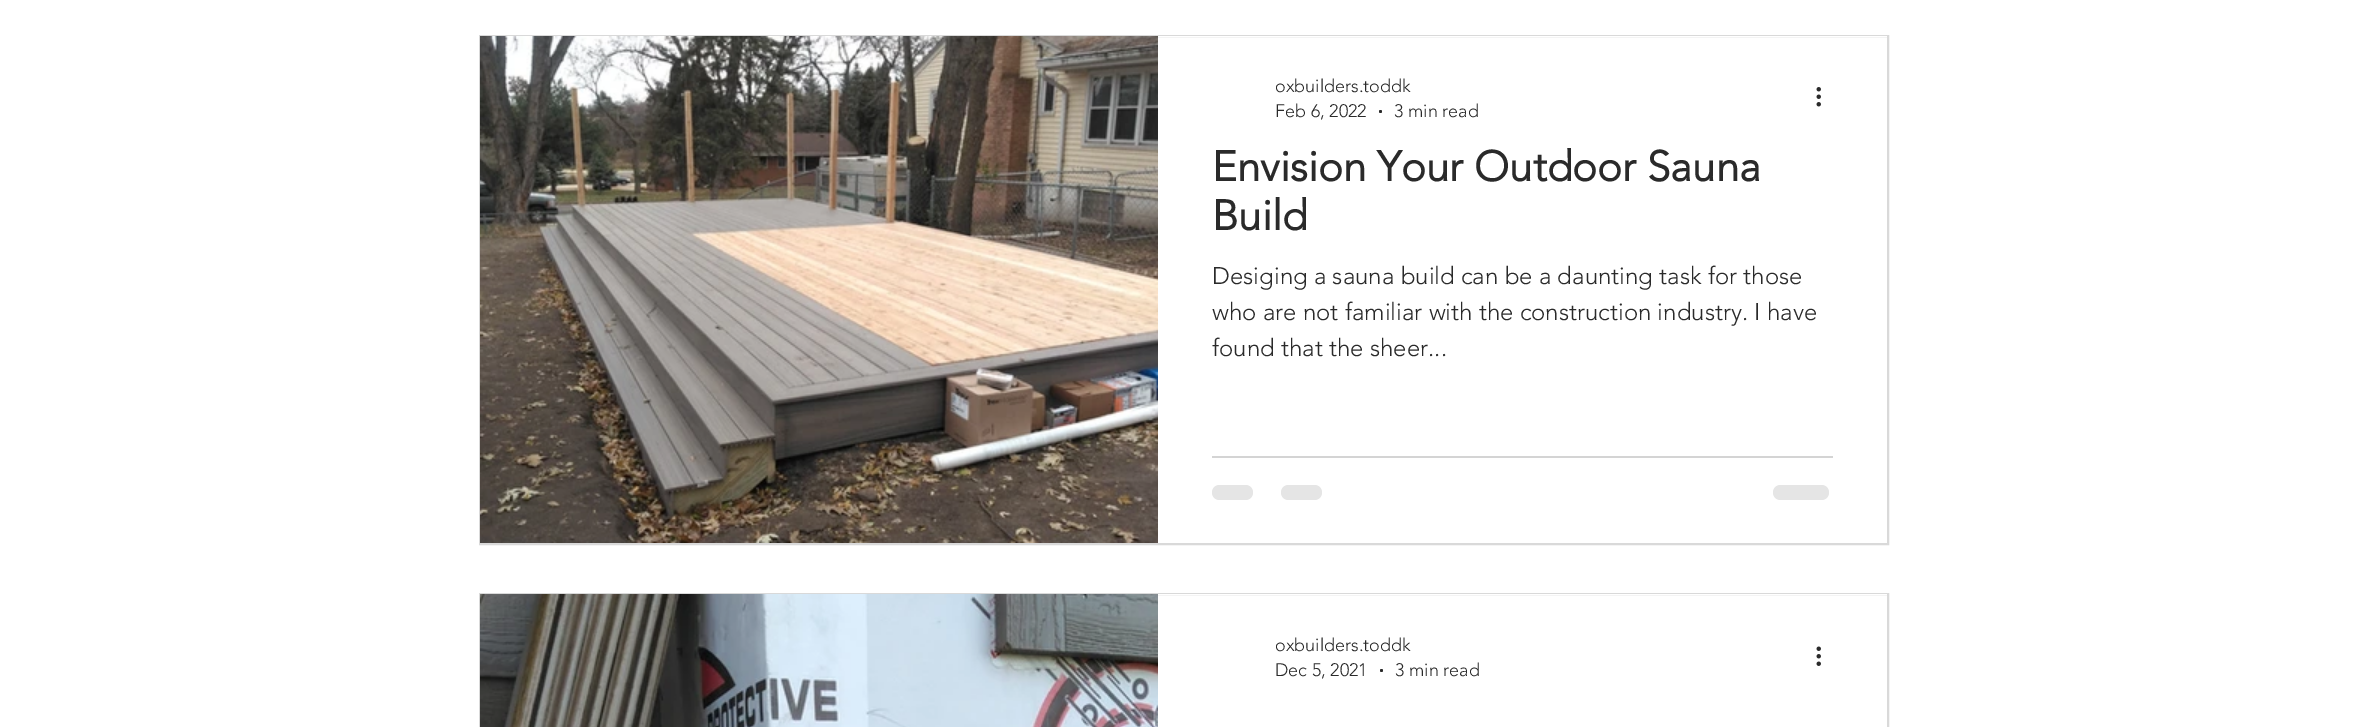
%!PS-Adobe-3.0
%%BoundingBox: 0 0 2369 727
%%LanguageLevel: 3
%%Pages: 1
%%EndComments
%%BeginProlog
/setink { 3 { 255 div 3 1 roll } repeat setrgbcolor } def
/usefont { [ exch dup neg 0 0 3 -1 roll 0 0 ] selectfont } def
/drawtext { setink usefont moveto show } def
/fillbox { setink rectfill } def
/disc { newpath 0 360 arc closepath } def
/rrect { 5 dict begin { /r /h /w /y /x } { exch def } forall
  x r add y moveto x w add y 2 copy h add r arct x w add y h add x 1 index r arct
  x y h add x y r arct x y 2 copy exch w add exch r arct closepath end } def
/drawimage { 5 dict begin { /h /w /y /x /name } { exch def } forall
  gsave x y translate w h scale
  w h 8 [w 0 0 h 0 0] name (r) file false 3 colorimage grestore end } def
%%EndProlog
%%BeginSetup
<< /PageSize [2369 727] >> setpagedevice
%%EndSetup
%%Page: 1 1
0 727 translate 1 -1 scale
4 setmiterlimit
0 0 2369 727 255 255 255 fillbox
217 217 217 setink
2 setlinewidth
480 36 1408 508 rectstroke
(assets/img1.rgb) 480 36 678 507 drawimage
1158 36 729 1 255 255 255 fillbox
(oxbuilders.toddk) 1275 92 /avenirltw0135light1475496-Light 18 42 42 42 drawtext
(Feb 6, 2022) 1275 117 /avenirltw0135light1475496-Light 18 42 42 42 drawtext
1380.5 111.5 1.5 disc fill
(3 min read) 1394 117 /avenirltw0135light1475496-Light 18 42 42 42 drawtext
(assets/img2.rgb) 1816 87 5 20 drawimage
(Envision Your Outdoor Sauna) 1212 181 /avenirltw0135light1475496-Bold 42 42 42 42 drawtext
(Build) 1212 230 /avenirltw0135light1475496-Bold 42 42 42 42 drawtext
(Desiging a sauna build can be a daunting task for those) 1212 284 /avenirltw0135light1475496-Light 24 42 42 42 drawtext
(who are not familiar with the construction industry. I have) 1212 320 /avenirltw0135light1475496-Light 24 42 42 42 drawtext
(found that the sheer...) 1212 356 /avenirltw0135light1475496-Light 24 42 42 42 drawtext
1212 456 621 2 212 212 212 fillbox
229 229 229 setink
1212 485 41 15 7.5 rrect fill
1281 485 41 15 7.5 rrect fill
1773 485 56 15 7.5 rrect fill
217 217 217 setink
480 594 1408 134 rectstroke
(assets/img3.rgb) 480 594 678 133 drawimage
1158 594 729 1 255 255 255 fillbox
(oxbuilders.toddk) 1275 651 /avenirltw0135light1475496-Light 18 42 42 42 drawtext
(Dec 5, 2021) 1275 676 /avenirltw0135light1475496-Light 18 42 42 42 drawtext
1381.5 670.5 1.5 disc fill
(3 min read) 1395 676 /avenirltw0135light1475496-Light 18 42 42 42 drawtext
(assets/img4.rgb) 1816 646 5 20 drawimage
showpage
%%EOF
